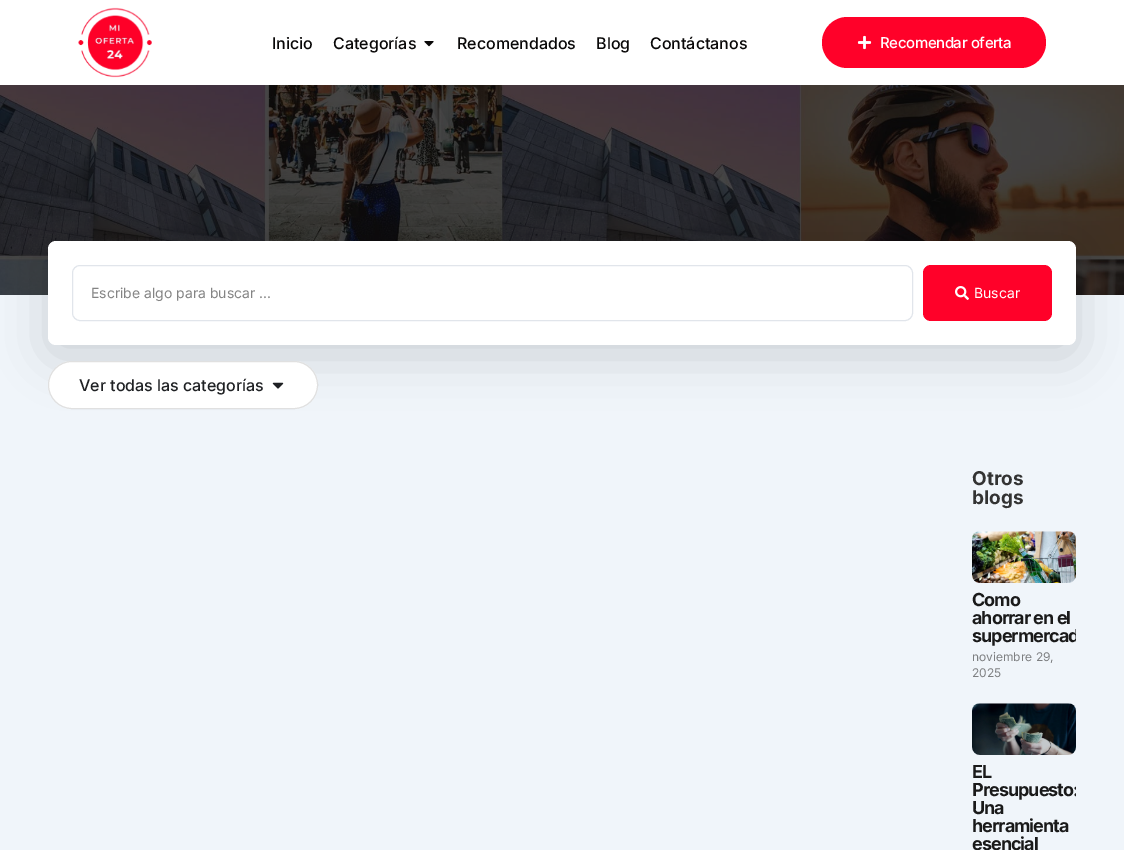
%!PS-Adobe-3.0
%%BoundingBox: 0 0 1124 850
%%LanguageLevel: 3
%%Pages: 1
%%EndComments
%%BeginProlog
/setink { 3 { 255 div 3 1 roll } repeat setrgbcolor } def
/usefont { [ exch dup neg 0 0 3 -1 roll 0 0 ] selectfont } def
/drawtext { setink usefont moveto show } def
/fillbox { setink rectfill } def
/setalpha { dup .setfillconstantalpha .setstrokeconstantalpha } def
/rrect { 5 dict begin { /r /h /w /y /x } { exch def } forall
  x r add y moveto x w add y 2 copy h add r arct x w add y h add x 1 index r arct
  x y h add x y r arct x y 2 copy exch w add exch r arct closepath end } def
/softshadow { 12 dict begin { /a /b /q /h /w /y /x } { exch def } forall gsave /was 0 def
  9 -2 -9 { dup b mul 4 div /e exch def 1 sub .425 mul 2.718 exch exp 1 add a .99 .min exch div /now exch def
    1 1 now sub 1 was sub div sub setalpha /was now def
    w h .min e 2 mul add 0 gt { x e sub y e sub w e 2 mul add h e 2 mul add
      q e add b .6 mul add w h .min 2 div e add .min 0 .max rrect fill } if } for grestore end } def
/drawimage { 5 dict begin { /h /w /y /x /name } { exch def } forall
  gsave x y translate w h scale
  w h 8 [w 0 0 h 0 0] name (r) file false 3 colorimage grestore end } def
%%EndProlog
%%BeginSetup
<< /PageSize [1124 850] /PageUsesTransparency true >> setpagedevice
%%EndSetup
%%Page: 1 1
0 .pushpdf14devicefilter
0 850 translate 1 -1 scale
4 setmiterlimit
0 0 1124 850 240 245 250 fillbox
0 0 1124 85 255 255 255 fillbox
(assets/img1.rgb) 78 7 74 71 drawimage
(Inicio) 272 49 /Inter-Medium 16 9 8 8 drawtext
(Categorías) 333 49 /Inter-Medium 16 9 8 8 drawtext
(assets/img2.rgb) 424 41 10 6 drawimage
(Recomendados) 457 49 /Inter-Medium 16 9 8 8 drawtext
(Blog) 596 49 /Inter-Medium 16 9 8 8 drawtext
(Contáctanos) 650 49 /Inter-Medium 16 9 8 8 drawtext
255 1 41 setink
822 17 224 51 25.5 rrect fill
(assets/img3.rgb) 857 35 15 15 drawimage
/Inter-Medium 15 usefont
255 255 255 setink
880 48 moveto -0.4 0 (Recomendar oferta) ashow
(assets/img4.rgb) 0 85 1124 210 drawimage
0 0 0 setink
48 251 1028 104 8 25 0.15 softshadow
255 255 255 setink
48 241 1028 104 8 rrect fill
225 229 235 setink
72.5 265.5 840 55 7.5 rrect stroke
(Escribe algo para buscar ...) 91 298 /Inter-Regular 14 132 132 132 drawtext
255 1 41 setink
923 265 129 56 8 rrect fill
(assets/img5.rgb) 955 286 14 14 drawimage
(Buscar) 974 298 /Inter-Regular 14 255 255 255 drawtext
48 361 270 48 24 rrect fill
0.12 setalpha
0 0 0 setink
48.5 361.5 269 47 23.5 rrect stroke
1 setalpha
(Ver todas las categorías) 79 391 /Inter-Medium 16 31 33 36 drawtext
(assets/img6.rgb) 272 382 12 7 drawimage
(Otros) 972 485 /Inter-Bold 19 51 51 51 drawtext
(blogs) 972 504 /Inter-Bold 19 51 51 51 drawtext
(assets/img7.rgb) 972 531 104 52 drawimage
/Inter-Bold 18 usefont
26 26 26 setink
972 606 moveto -1 0 (Como) ashow
972 624 moveto -1 0 (ahorrar en el) ashow
gsave
972 531 104 162 rectclip
972 642 moveto -1 0 (supermercad) ashow
grestore
(noviembre 29,) 972 661 /Inter-Regular 12 125 127 129 drawtext
(2025) 972 677 /Inter-Regular 12 125 127 129 drawtext
(assets/img8.rgb) 972 703 104 52 drawimage
/Inter-Bold 18 usefont
26 26 26 setink
972 778 moveto -1 0 (EL) ashow
gsave
972 703 104 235 rectclip
972 796 moveto -1 0 (Presupuesto:) ashow
grestore
972 814 moveto -1 0 (Una) ashow
972 832 moveto -1 0 (herramienta) ashow
972 850 moveto -1 0 (esencial) ashow
.poppdf14devicefilter showpage
%%EOF
